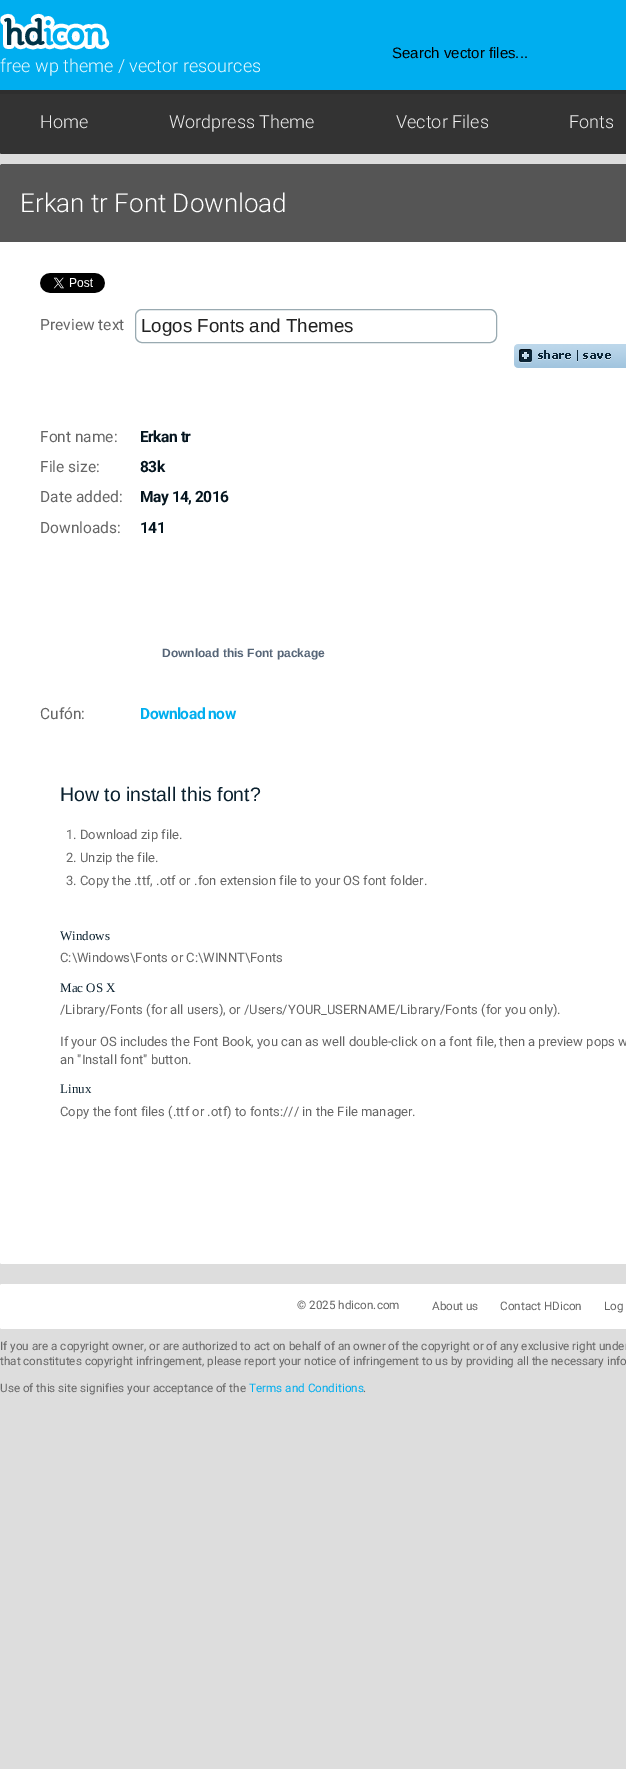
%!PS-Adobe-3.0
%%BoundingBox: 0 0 626 1769
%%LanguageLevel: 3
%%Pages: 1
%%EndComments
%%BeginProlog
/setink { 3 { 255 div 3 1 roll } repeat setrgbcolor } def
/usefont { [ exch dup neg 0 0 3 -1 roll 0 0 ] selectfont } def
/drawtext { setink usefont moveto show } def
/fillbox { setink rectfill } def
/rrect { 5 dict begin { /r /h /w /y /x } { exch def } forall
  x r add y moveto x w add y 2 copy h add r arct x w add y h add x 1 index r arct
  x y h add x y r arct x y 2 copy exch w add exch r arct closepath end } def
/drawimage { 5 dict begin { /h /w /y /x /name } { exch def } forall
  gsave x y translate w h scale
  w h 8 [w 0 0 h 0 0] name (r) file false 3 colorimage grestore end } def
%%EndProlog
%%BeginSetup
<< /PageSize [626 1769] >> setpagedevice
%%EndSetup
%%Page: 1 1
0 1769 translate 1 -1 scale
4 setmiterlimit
0 0 626 1769 221 221 221 fillbox
51 51 51 setink
0 89 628 65 2 rrect fill
2 89 moveto 129 89 lineto 129 154 lineto 2 154 lineto 1 154 0 153 0 152 curveto 0 91 lineto 0 90 1 89 2 89 curveto closepath fill
0 90 626 4 46 46 46 fillbox
0 0 626 90 0 174 239 fillbox
(Search vector files...) 392 58 /LiberationSans-Regular 15 0 0 0 drawtext
(assets/img1.rgb) 0 13 110 37 drawimage
(free wp theme / vector resources) 0 72 /Roboto-Light 18 232 249 255 drawtext
(Home) 40 128 /Roboto-Light 18 238 238 238 drawtext
(Wordpress Theme) 169 128 /Roboto-Light 18 238 238 238 drawtext
(Vector Files) 396 128 /Roboto-Light 18 238 238 238 drawtext
(Fonts) 569 128 /Roboto-Light 18 238 238 238 drawtext
255 255 255 setink
0 164 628 1100 2 rrect fill
85 85 85 setink
2 164 moveto 626 164 lineto 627 164 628 165 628 166 curveto 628 242 lineto 0 242 lineto 0 166 lineto 0 165 1 164 2 164 curveto closepath fill
(Erkan tr Font Download) 20 212 /Roboto-Light 26 255 255 255 drawtext
(assets/img2.rgb) 40 273 65 20 drawimage
(Preview text) 40 330 /Roboto-Regular 15.5 102 102 102 drawtext
153 170 177 setink
135.5 309.5 361 33 6.5 rrect stroke
(Logos Fonts and Themes) 141 332 /LiberationSans-Regular 18.75 34 34 34 drawtext
(assets/img3.rgb) 514 344 112 24 drawimage
(Font name:) 40 442 /Roboto-Regular 15.5 102 102 102 drawtext
/Roboto-Bold 15.5 usefont
5 21 31 setink
140 442 moveto -0.5 0 (Erkan tr) ashow
(File size:) 40 472 /Roboto-Regular 15.5 102 102 102 drawtext
/Roboto-Bold 15.5 usefont
5 21 31 setink
140 472 moveto -0.5 0 (83k) ashow
(Date added:) 40 502 /Roboto-Regular 15.5 102 102 102 drawtext
/Roboto-Bold 15.5 usefont
5 21 31 setink
140 502 moveto -0.5 0 (May 14, 2016) ashow
(Downloads:) 40 533 /Roboto-Regular 15.5 102 102 102 drawtext
/Roboto-Bold 15.5 usefont
5 21 31 setink
140 533 moveto -0.5 0 (141) ashow
(Download this Font package) 162 657 /LiberationSans-Bold 12 86 101 119 drawtext
(Cufón:) 40 719 /Roboto-Regular 15.5 102 102 102 drawtext
/Roboto-Bold 15.5 usefont
0 174 239 setink
140 719 moveto -0.5 0 (Download now) ashow
(How to install this font?) 60 801 /LiberationSans-Regular 19.5 10 32 46 drawtext
(1. Download zip file.) 66 839 /Roboto-Regular 13 102 102 102 drawtext
(2. Unzip the file.) 66 862 /Roboto-Regular 13 102 102 102 drawtext
(3. Copy the .ttf, .otf or .fon extension file to your OS font folder.) 66 885 /Roboto-Regular 13 102 102 102 drawtext
(Windows) 60 940 /LiberationSerif-Regular 13 10 32 46 drawtext
(C:\\Windows\\Fonts or C:\\WINNT\\Fonts) 60 962 /Roboto-Regular 13 102 102 102 drawtext
(Mac OS X) 60 992 /LiberationSerif-Regular 13 10 32 46 drawtext
(/Library/Fonts \(for all users\), or /Users/YOUR_USERNAME/Library/Fonts \(for you only\).) 60 1014 /Roboto-Regular 13 102 102 102 drawtext
(If your OS includes the Font Book, you can as well double-click on a font file, then a preview pops w) 60 1046 /Roboto-Regular 13 102 102 102 drawtext
(an "Install font" button.) 60 1064 /Roboto-Regular 13 102 102 102 drawtext
(Linux) 60 1093 /LiberationSerif-Regular 13 10 32 46 drawtext
(Copy the font files \(.ttf or .otf\) to fonts:/// in the File manager.) 60 1116 /Roboto-Regular 13 102 102 102 drawtext
255 255 255 setink
0 1284 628 45 2 rrect fill
(© 2025 hdicon.com) 297 1309 /Roboto-Regular 11.7 102 102 102 drawtext
(About us) 432 1310 /Roboto-Regular 11.7 102 102 102 drawtext
(Contact HDicon) 500 1310 /Roboto-Regular 11.7 102 102 102 drawtext
(Log) 604 1310 /Roboto-Regular 11.7 102 102 102 drawtext
(If you are a copyright owner, or are authorized to act on behalf of an owner of the copyright or of any exclusive right under) 0 1350 /Roboto-Regular 11.7 102 102 102 drawtext
(that constitutes copyright infringement, please report your notice of infringement to us by providing all the necessary info) 0 1365 /Roboto-Regular 11.7 102 102 102 drawtext
(Use of this site signifies your acceptance of the) 0 1392 /Roboto-Regular 11.7 102 102 102 drawtext
(Terms and Conditions) 249 1392 /Roboto-Regular 11.7 0 174 239 drawtext
(.) 363 1392 /Roboto-Regular 11.7 102 102 102 drawtext
showpage
%%EOF
